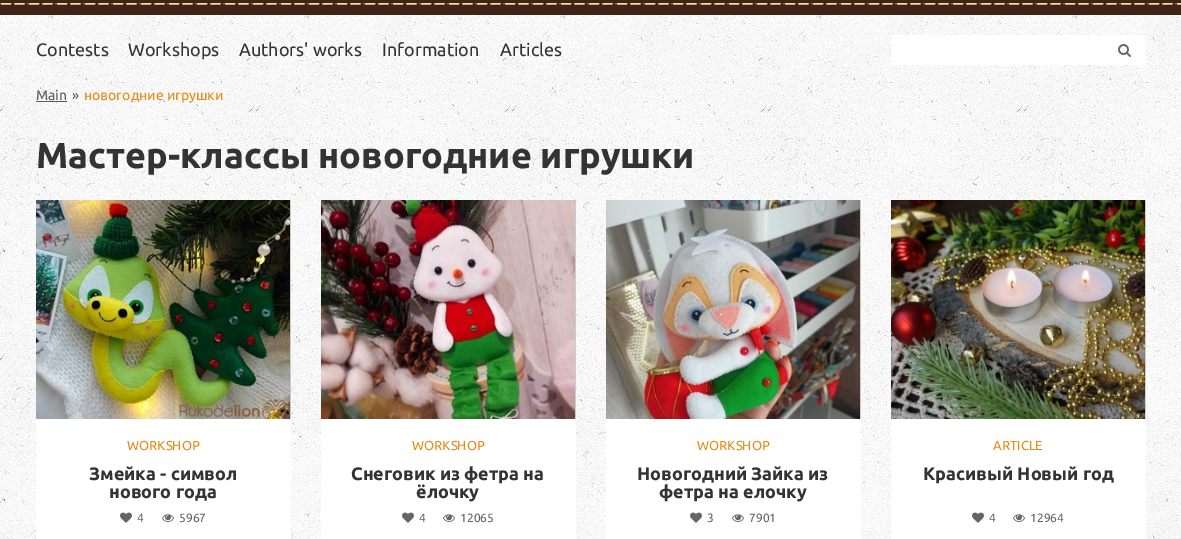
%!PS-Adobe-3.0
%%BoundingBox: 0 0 1181 539
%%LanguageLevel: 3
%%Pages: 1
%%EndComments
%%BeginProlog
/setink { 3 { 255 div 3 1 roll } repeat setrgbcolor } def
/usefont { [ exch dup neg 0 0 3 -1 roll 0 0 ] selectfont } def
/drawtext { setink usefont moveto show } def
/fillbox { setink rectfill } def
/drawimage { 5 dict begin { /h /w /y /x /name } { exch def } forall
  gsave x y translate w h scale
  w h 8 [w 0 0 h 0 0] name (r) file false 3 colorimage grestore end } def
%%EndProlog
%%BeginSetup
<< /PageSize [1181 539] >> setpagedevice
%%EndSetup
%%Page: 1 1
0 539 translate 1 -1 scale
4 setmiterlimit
0 0 1181 539 255 255 255 fillbox
(assets/img1.rgb) 0 15 1181 524 drawimage
0 0 1181 15 61 36 22 fillbox
(assets/img2.rgb) 0 3 1181 2 drawimage
(Contests) 36 56 /Ubuntu-Regular 18 51 51 51 drawtext
(Workshops) 128 56 /Ubuntu-Regular 18 51 51 51 drawtext
(Authors' works) 239 56 /Ubuntu-Regular 18 51 51 51 drawtext
(Information) 382 56 /Ubuntu-Regular 18 51 51 51 drawtext
(Articles) 500 56 /Ubuntu-Regular 18 51 51 51 drawtext
891 35 255 30 255 255 255 fillbox
(assets/img3.rgb) 1118 44 13 13 drawimage
(Main) 36 100 /Ubuntu-Regular 14 90 90 90 drawtext
36 101 31 1 90 90 90 fillbox
(») 72 100 /Ubuntu-Regular 14 90 90 90 drawtext
(новогодние игрушки) 84 100 /Ubuntu-Regular 14 231 137 20 drawtext
(Мастер-классы новогодние игрушки) 36 168 /Ubuntu-Bold 36 51 51 51 drawtext
36 419 255 120 255 255 255 fillbox
290 200 1 219 204 204 204 fillbox
(assets/img4.rgb) 36 200 254 219 drawimage
(WORKSHOP) 127 450 /Ubuntu-Regular 13 231 137 20 drawtext
(Змейка - символ) 89 480 /Ubuntu-Bold 18 51 51 51 drawtext
(нового года) 109 498 /Ubuntu-Bold 18 51 51 51 drawtext
(assets/img5.rgb) 120 512 12 11 drawimage
(4) 137 522 /Ubuntu-Regular 12 101 101 101 drawtext
(assets/img6.rgb) 162 514 12 8 drawimage
(5967) 179 522 /Ubuntu-Regular 12 101 101 101 drawtext
321 419 255 120 255 255 255 fillbox
575 200 1 219 204 204 204 fillbox
(assets/img7.rgb) 321 200 254 219 drawimage
(WORKSHOP) 412 450 /Ubuntu-Regular 13 231 137 20 drawtext
(Снеговик из фетра на) 351 480 /Ubuntu-Bold 18 51 51 51 drawtext
(ёлочку) 416 498 /Ubuntu-Bold 18 51 51 51 drawtext
(assets/img5.rgb) 402 512 12 11 drawimage
(4) 419 522 /Ubuntu-Regular 12 101 101 101 drawtext
(assets/img6.rgb) 443 514 12 8 drawimage
(12065) 460 522 /Ubuntu-Regular 12 101 101 101 drawtext
606 419 255 120 255 255 255 fillbox
860 200 1 219 204 204 204 fillbox
(assets/img8.rgb) 606 200 254 219 drawimage
(WORKSHOP) 697 450 /Ubuntu-Regular 13 231 137 20 drawtext
(Новогодний Зайка из) 637 480 /Ubuntu-Bold 18 51 51 51 drawtext
(фетра на елочку) 659 498 /Ubuntu-Bold 18 51 51 51 drawtext
(assets/img5.rgb) 690 512 12 11 drawimage
(3) 707 522 /Ubuntu-Regular 12 101 101 101 drawtext
(assets/img6.rgb) 732 514 12 8 drawimage
(7901) 749 522 /Ubuntu-Regular 12 101 101 101 drawtext
891 419 255 120 255 255 255 fillbox
1145 200 1 219 204 204 204 fillbox
(assets/img9.rgb) 891 200 254 219 drawimage
(ARTICLE) 993 450 /Ubuntu-Regular 13 231 137 20 drawtext
(Красивый Новый год) 923 480 /Ubuntu-Bold 18 51 51 51 drawtext
(assets/img5.rgb) 972 512 12 11 drawimage
(4) 989 522 /Ubuntu-Regular 12 101 101 101 drawtext
(assets/img6.rgb) 1013 514 12 8 drawimage
(12964) 1030 522 /Ubuntu-Regular 12 101 101 101 drawtext
showpage
%%EOF
